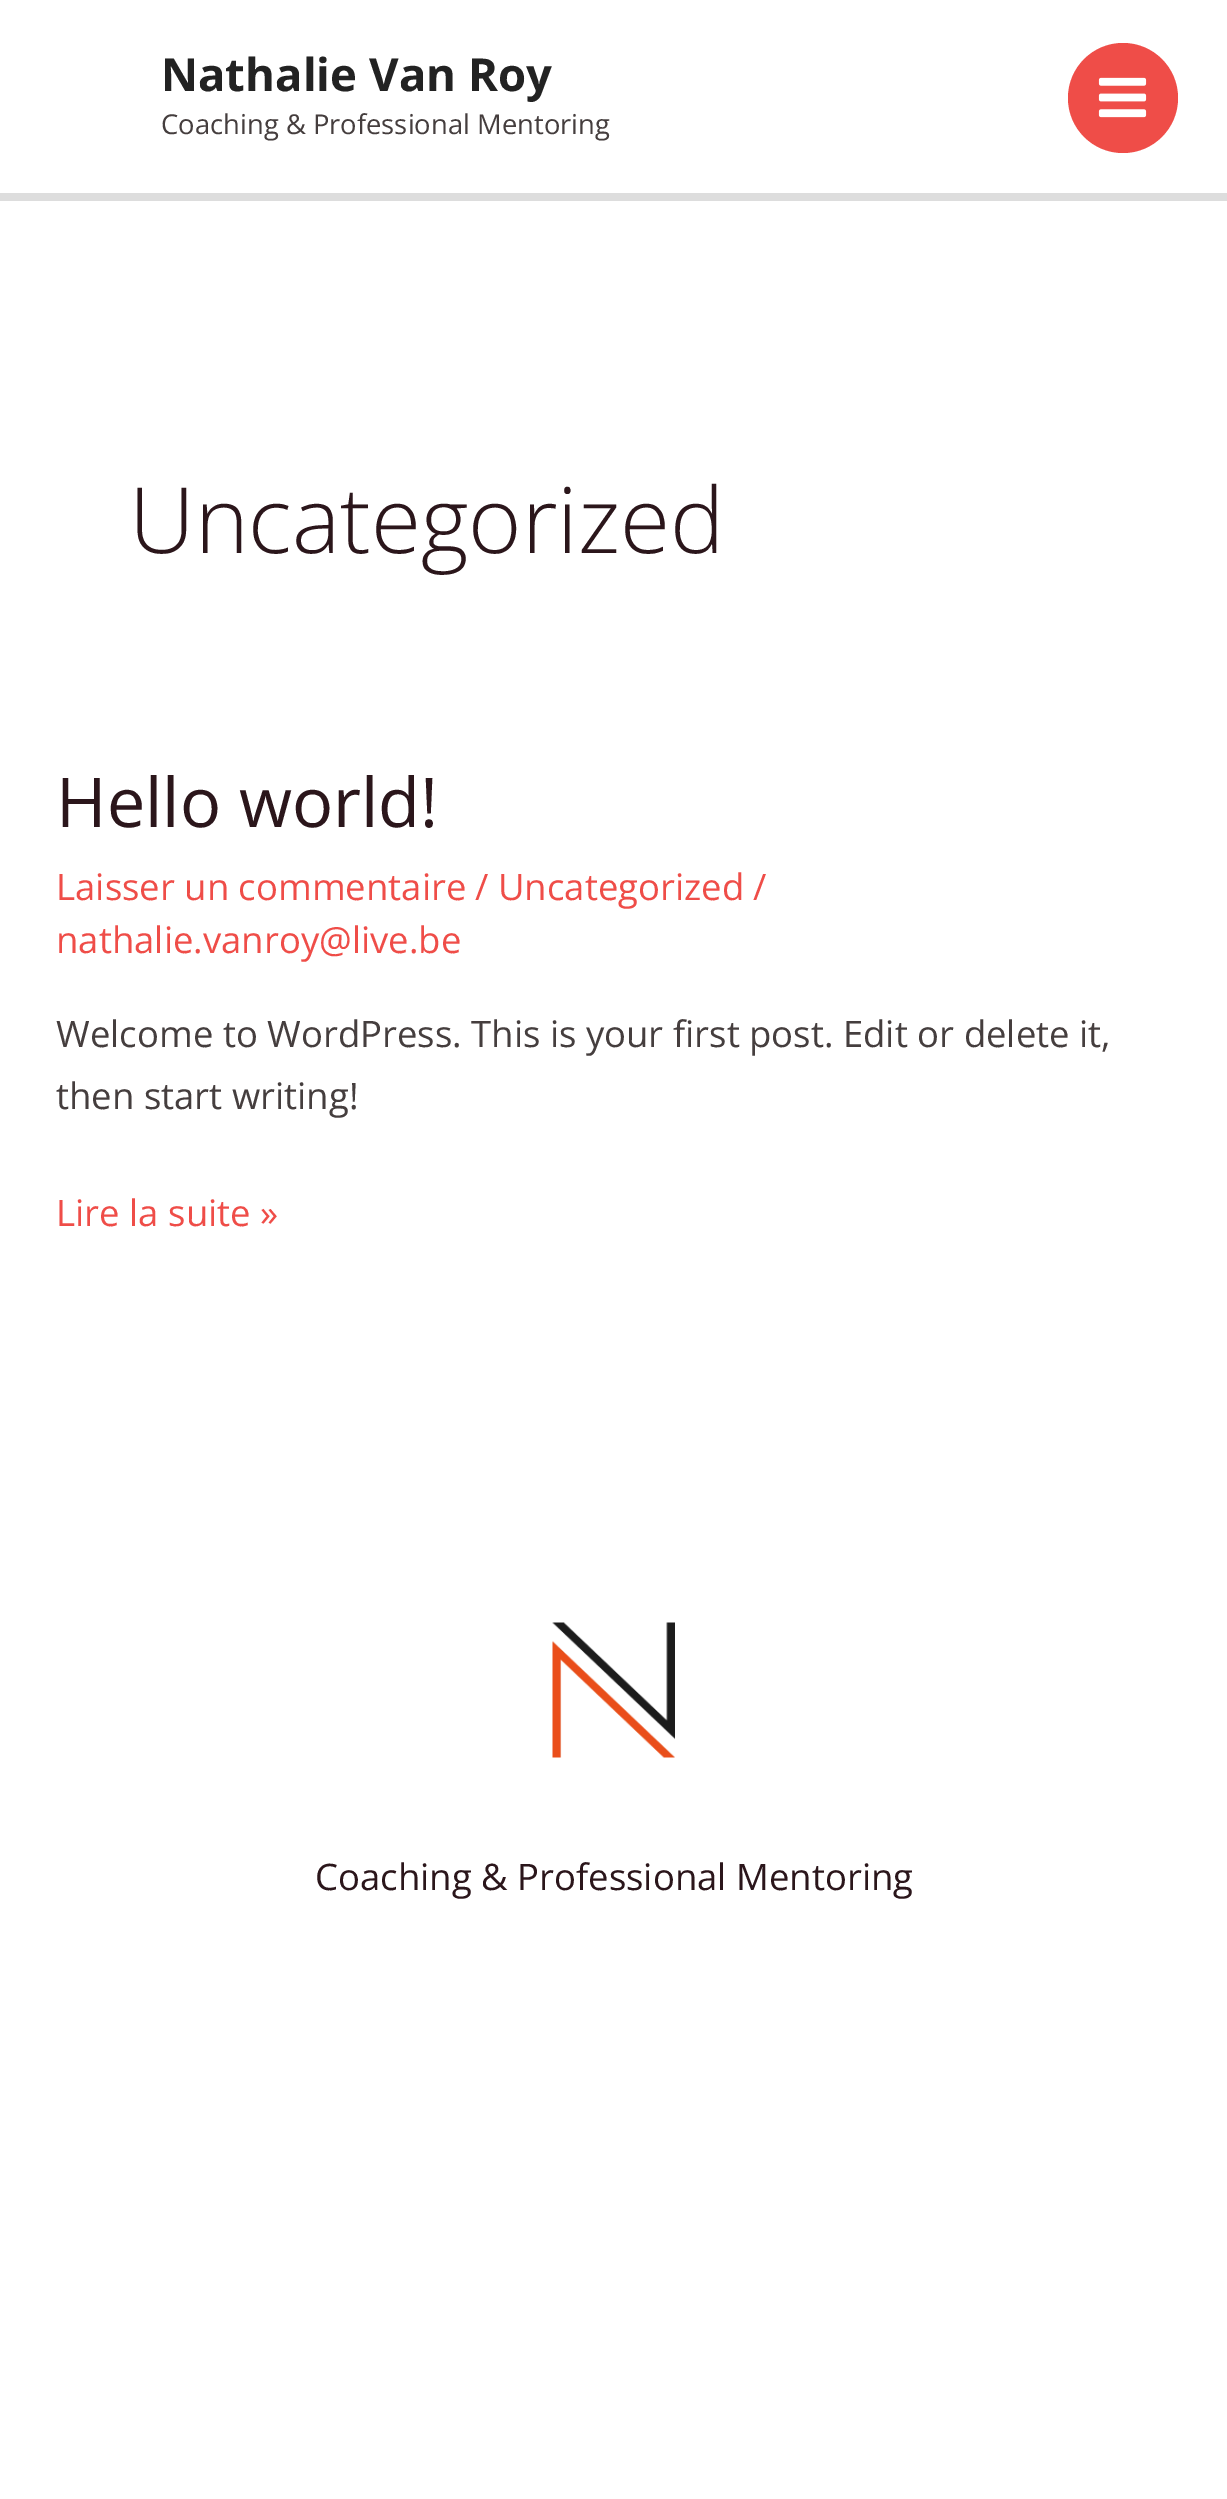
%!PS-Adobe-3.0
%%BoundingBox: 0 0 1227 2499
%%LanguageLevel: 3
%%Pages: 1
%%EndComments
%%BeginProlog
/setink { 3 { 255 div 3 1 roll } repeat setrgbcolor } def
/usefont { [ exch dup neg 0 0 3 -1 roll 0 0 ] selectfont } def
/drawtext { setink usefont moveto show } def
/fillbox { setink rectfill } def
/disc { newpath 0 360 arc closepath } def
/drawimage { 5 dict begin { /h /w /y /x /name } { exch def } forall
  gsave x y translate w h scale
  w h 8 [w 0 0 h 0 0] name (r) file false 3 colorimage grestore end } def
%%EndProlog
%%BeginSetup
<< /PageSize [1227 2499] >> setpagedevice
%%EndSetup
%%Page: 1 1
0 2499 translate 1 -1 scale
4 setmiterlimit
0 0 1227 2499 255 255 255 fillbox
0 193 1227 8 221 221 221 fillbox
(Nathalie Van Roy) 161 91 /OpenSans-Bold 45.5 34 34 34 drawtext
(Coaching & Professional Mentoring) 161 134 /OpenSans-Regular 27.4 69 62 62 drawtext
239 77 72 setink
1123 98 55 disc fill
(assets/img1.rgb) 1098 77 49 41 drawimage
(Uncategorized) 129 553 /OpenSans-Light 91.25 43 22 27 drawtext
(Hello world!) 56 827 /OpenSans-Regular 68.5 43 22 27 drawtext
(Laisser un commentaire) 56 900 /OpenSans-Regular 36.5 239 77 72 drawtext
(/ Uncategorized /) 475 900 /OpenSans-Regular 36.5 239 77 72 drawtext
(nathalie.vanroy@live.be) 56 953 /OpenSans-Regular 36.5 239 77 72 drawtext
(Welcome to WordPress. This is your first post. Edit or delete it,) 56 1047 /OpenSans-Regular 36.5 69 62 62 drawtext
(then start writing!) 56 1109 /OpenSans-Regular 36.5 69 62 62 drawtext
(Lire la suite ») 56 1226 /OpenSans-Regular 36.5 239 77 72 drawtext
(assets/img2.rgb) 552 1622 123 136 drawimage
(Coaching & Professional Mentoring) 315 1890 /OpenSans-Regular 36.5 43 22 27 drawtext
showpage
%%EOF
